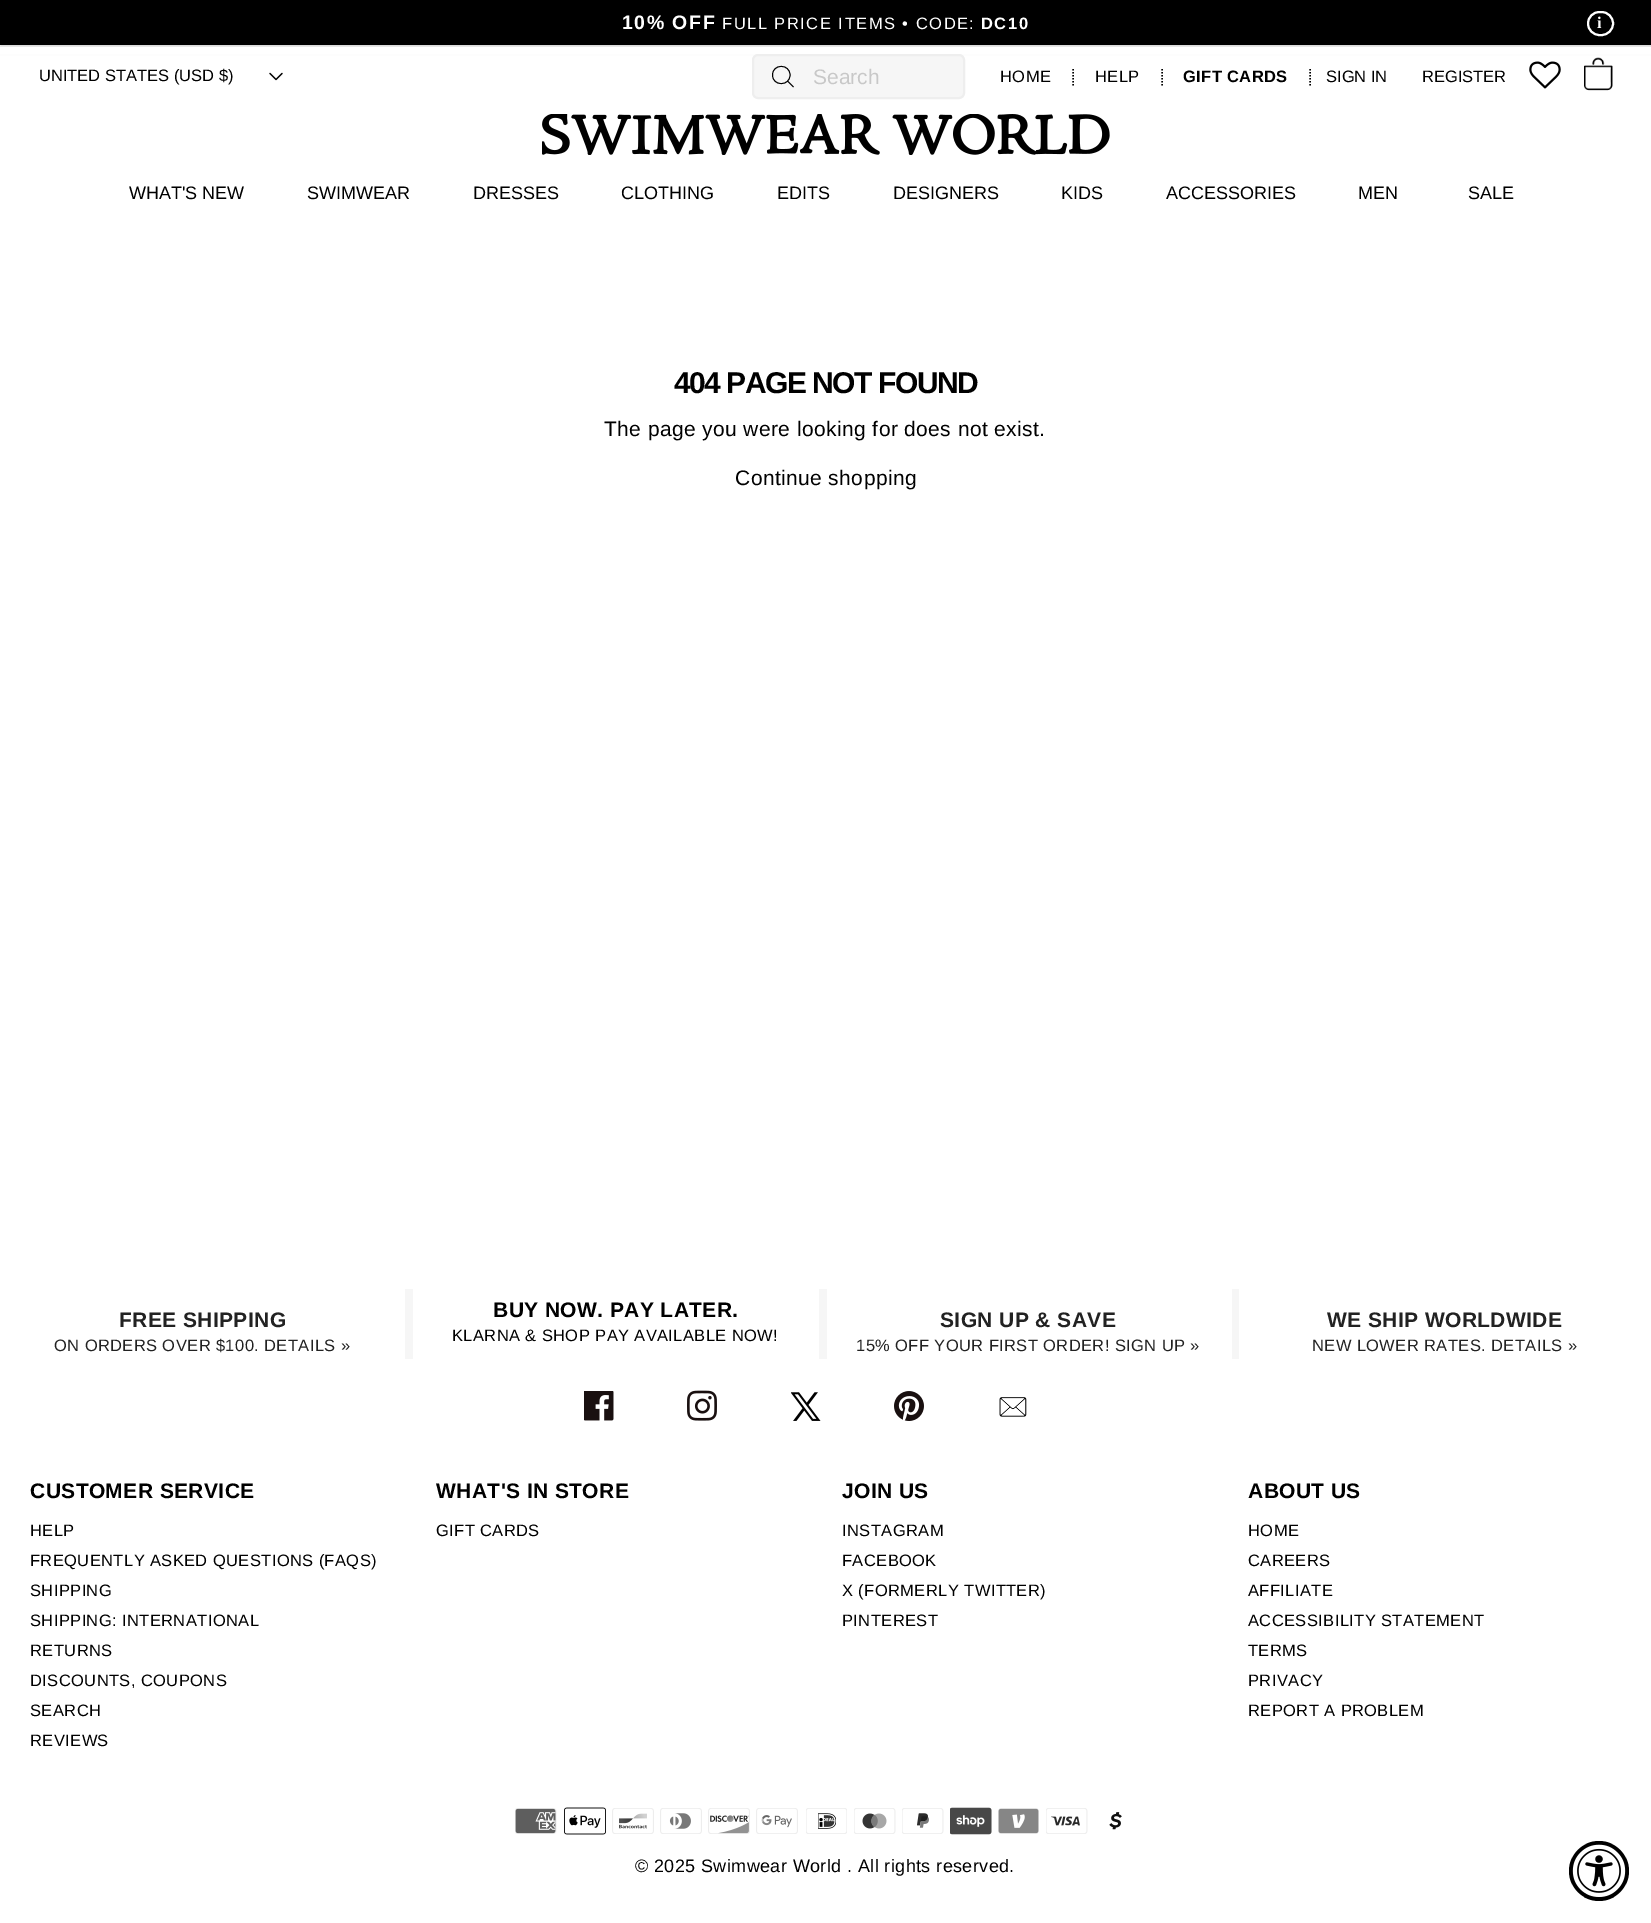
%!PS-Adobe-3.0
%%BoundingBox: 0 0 1651 1923
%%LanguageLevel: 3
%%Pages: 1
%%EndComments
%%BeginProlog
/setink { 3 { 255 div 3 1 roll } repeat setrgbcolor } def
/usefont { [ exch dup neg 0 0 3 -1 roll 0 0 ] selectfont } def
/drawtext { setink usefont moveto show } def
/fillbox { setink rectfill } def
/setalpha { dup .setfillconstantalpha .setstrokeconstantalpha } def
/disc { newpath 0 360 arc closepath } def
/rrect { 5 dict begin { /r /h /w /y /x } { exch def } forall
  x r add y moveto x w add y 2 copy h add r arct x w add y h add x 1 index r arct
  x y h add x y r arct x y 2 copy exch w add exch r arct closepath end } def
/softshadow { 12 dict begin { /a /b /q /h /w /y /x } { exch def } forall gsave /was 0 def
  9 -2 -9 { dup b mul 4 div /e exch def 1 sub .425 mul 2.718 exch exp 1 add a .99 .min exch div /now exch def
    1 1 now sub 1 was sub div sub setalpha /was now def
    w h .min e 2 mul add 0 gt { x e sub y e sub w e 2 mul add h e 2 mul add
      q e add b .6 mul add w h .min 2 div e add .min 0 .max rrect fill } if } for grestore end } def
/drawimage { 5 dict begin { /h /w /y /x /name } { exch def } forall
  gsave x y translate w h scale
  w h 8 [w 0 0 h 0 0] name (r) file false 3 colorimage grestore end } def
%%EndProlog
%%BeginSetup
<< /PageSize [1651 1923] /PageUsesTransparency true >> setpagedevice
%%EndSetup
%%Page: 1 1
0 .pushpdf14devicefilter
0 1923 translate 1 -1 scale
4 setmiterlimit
0 0 1651 1923 255 255 255 fillbox
204 204 204 setink
0 2 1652 45 0 4 1 softshadow
0 0 1651 45 0 0 0 fillbox
/LiberationSans-Bold 19.5 usefont
255 255 255 setink
622 29 moveto 1.5 0 (10% OFF) ashow
/LiberationSans-Regular 16.5 usefont
722 29 moveto 1.5 0 (FULL PRICE ITEMS • CODE:) ashow
/LiberationSans-Bold 16.5 usefont
981 29 moveto 1.5 0 (DC10) ashow
2 setlinewidth
1588 12 25 23 11.5 rrect stroke
/LiberationSerif-Bold 16.5 usefont
1597 28 moveto 1.5 0 (i) ashow
0 47 1651 7 255 255 255 fillbox
(UNITED STATES \(USD $\)) 39 81 /LiberationSans-Regular 16.5 0 0 0 drawtext
(assets/img1.rgb) 269 72 14 9 drawimage
246 246 246 setink
753 55 211 43 5 rrect gsave fill grestore
238 238 238 setink
stroke
0 0 0 setink
0.9 setlinewidth
790 75 moveto 790 86.5 772.5 86.5 772.5 75 curveto 772.5 63.5 790 63.5 790 75 curveto closepath 793.5 87 moveto 787.5 81 lineto stroke
(Search) 813 84 /LiberationSans-Regular 21 200 200 200 drawtext
0 0 0 setink
1.5 setlinewidth
[1.5 1.5] 0 setdash
1073 69 moveto 1073 85.5 lineto stroke
/LiberationSans-Regular 16.5 usefont
1000 82 moveto 0.4 0 (HOME) ashow
1162 69 moveto 1162 85.5 lineto stroke
1095 82 moveto 0.4 0 (HELP) ashow
1310 69 moveto 1310 85.5 lineto stroke
/LiberationSans-Bold 16.5 usefont
1183 82 moveto 0.4 0 (GIFT CARDS) ashow
(SIGN IN) 1326 82 /LiberationSans-Regular 16.5 0 0 0 drawtext
(REGISTER) 1422 82 /LiberationSans-Regular 16.5 0 0 0 drawtext
(assets/img2.rgb) 1529 61 32 28 drawimage
(assets/img3.rgb) 1584 57 29 34 drawimage
(assets/img4.rgb) 542 114 568 41 drawimage
(WHAT'S NEW) 129 199 /LiberationSans-Regular 18 0 0 0 drawtext
(SWIMWEAR) 307 199 /LiberationSans-Regular 18 0 0 0 drawtext
(DRESSES) 473 199 /LiberationSans-Regular 18 0 0 0 drawtext
(CLOTHING) 621 199 /LiberationSans-Regular 18 0 0 0 drawtext
(EDITS) 777 199 /LiberationSans-Regular 18 0 0 0 drawtext
(DESIGNERS) 893 199 /LiberationSans-Regular 18 0 0 0 drawtext
(KIDS) 1061 199 /LiberationSans-Regular 18 0 0 0 drawtext
(ACCESSORIES) 1166 199 /LiberationSans-Regular 18 0 0 0 drawtext
(MEN) 1358 199 /LiberationSans-Regular 18 0 0 0 drawtext
(SALE) 1468 199 /LiberationSans-Regular 18 0 0 0 drawtext
/LiberationSans-Bold 30 usefont
674 393 moveto -1.5 0 (404 PAGE NOT FOUND) ashow
/LiberationSans-Regular 21 usefont
604 436 moveto 0.4 0 (The page you were looking for does not exist.) ashow
735 485 moveto 0.4 0 (Continue shopping) ashow
405 1289 8 70 246 246 246 fillbox
/LiberationSans-Bold 21 usefont
34 34 34 setink
119 1327 moveto 0.4 0 (FREE SHIPPING) ashow
/LiberationSans-Regular 16.5 usefont
54 1351 moveto 0.4 0 (ON ORDERS OVER $100. DETAILS ») ashow
819 1289 8 70 246 246 246 fillbox
/LiberationSans-Bold 21 usefont
0 0 0 setink
493 1317 moveto 0.4 0 (BUY NOW. PAY LATER.) ashow
/LiberationSans-Regular 16.5 usefont
452 1341 moveto 0.4 0 (KLARNA & SHOP PAY AVAILABLE NOW!) ashow
1232 1289 7 70 246 246 246 fillbox
/LiberationSans-Bold 21 usefont
34 34 34 setink
940 1327 moveto 0.4 0 (SIGN UP & SAVE) ashow
/LiberationSans-Regular 16.5 usefont
856 1351 moveto 0.4 0 (15% OFF YOUR FIRST ORDER! SIGN UP ») ashow
/LiberationSans-Bold 21 usefont
1327 1327 moveto 0.4 0 (WE SHIP WORLDWIDE) ashow
/LiberationSans-Regular 16.5 usefont
1312 1351 moveto 0.4 0 (NEW LOWER RATES. DETAILS ») ashow
(assets/img5.rgb) 584 1391 30 30 drawimage
(assets/img6.rgb) 687 1390 30 31 drawimage
(assets/img7.rgb) 791 1392 30 29 drawimage
(assets/img8.rgb) 894 1391 30 30 drawimage
(assets/img9.rgb) 999 1397 28 20 drawimage
/LiberationSans-Bold 21 usefont
0 0 0 setink
30 1498 moveto 0.4 0 (CUSTOMER SERVICE) ashow
/LiberationSans-Regular 16.5 usefont
30 1536 moveto 0.4 0 (HELP) ashow
30 1566 moveto 0.4 0 (FREQUENTLY ASKED QUESTIONS \(FAQS\)) ashow
30 1596 moveto 0.4 0 (SHIPPING) ashow
30 1626 moveto 0.4 0 (SHIPPING: INTERNATIONAL) ashow
30 1656 moveto 0.4 0 (RETURNS) ashow
30 1686 moveto 0.4 0 (DISCOUNTS, COUPONS) ashow
30 1716 moveto 0.4 0 (SEARCH) ashow
30 1746 moveto 0.4 0 (REVIEWS) ashow
/LiberationSans-Bold 21 usefont
436 1498 moveto 0.4 0 (WHAT'S IN STORE) ashow
/LiberationSans-Regular 16.5 usefont
436 1536 moveto 0.4 0 (GIFT CARDS) ashow
/LiberationSans-Bold 21 usefont
842 1498 moveto 0.4 0 (JOIN US) ashow
/LiberationSans-Regular 16.5 usefont
842 1536 moveto 0.4 0 (INSTAGRAM) ashow
842 1566 moveto 0.4 0 (FACEBOOK) ashow
842 1596 moveto 0.4 0 (X \(FORMERLY TWITTER\)) ashow
842 1626 moveto 0.4 0 (PINTEREST) ashow
/LiberationSans-Bold 21 usefont
1248 1498 moveto 0.4 0 (ABOUT US) ashow
/LiberationSans-Regular 16.5 usefont
1248 1536 moveto 0.4 0 (HOME) ashow
1248 1566 moveto 0.4 0 (CAREERS) ashow
1248 1596 moveto 0.4 0 (AFFILIATE) ashow
1248 1626 moveto 0.4 0 (ACCESSIBILITY STATEMENT) ashow
1248 1656 moveto 0.4 0 (TERMS) ashow
1248 1686 moveto 0.4 0 (PRIVACY) ashow
1248 1716 moveto 0.4 0 (REPORT A PROBLEM) ashow
(assets/img10.rgb) 515 1808 42 26 drawimage
(assets/img11.rgb) 564 1807 42 28 drawimage
(assets/img12.rgb) 612 1808 42 26 drawimage
(assets/img13.rgb) 660 1808 42 26 drawimage
(assets/img14.rgb) 708 1808 42 26 drawimage
(assets/img15.rgb) 756 1808 42 26 drawimage
(assets/img16.rgb) 806 1808 41 26 drawimage
(assets/img17.rgb) 854 1808 42 26 drawimage
(assets/img18.rgb) 902 1808 42 26 drawimage
(assets/img19.rgb) 950 1807 42 28 drawimage
(assets/img20.rgb) 998 1808 41 26 drawimage
(assets/img21.rgb) 1046 1808 42 26 drawimage
(assets/img22.rgb) 1109 1812 13 18 drawimage
/LiberationSans-Regular 18 usefont
635 1872 moveto 0.4 0 (© 2025 Swimwear World . All rights reserved.) ashow
1599 1871 30 disc fill
(assets/img23.rgb) 1572 1844 54 53 drawimage
.poppdf14devicefilter showpage
%%EOF
